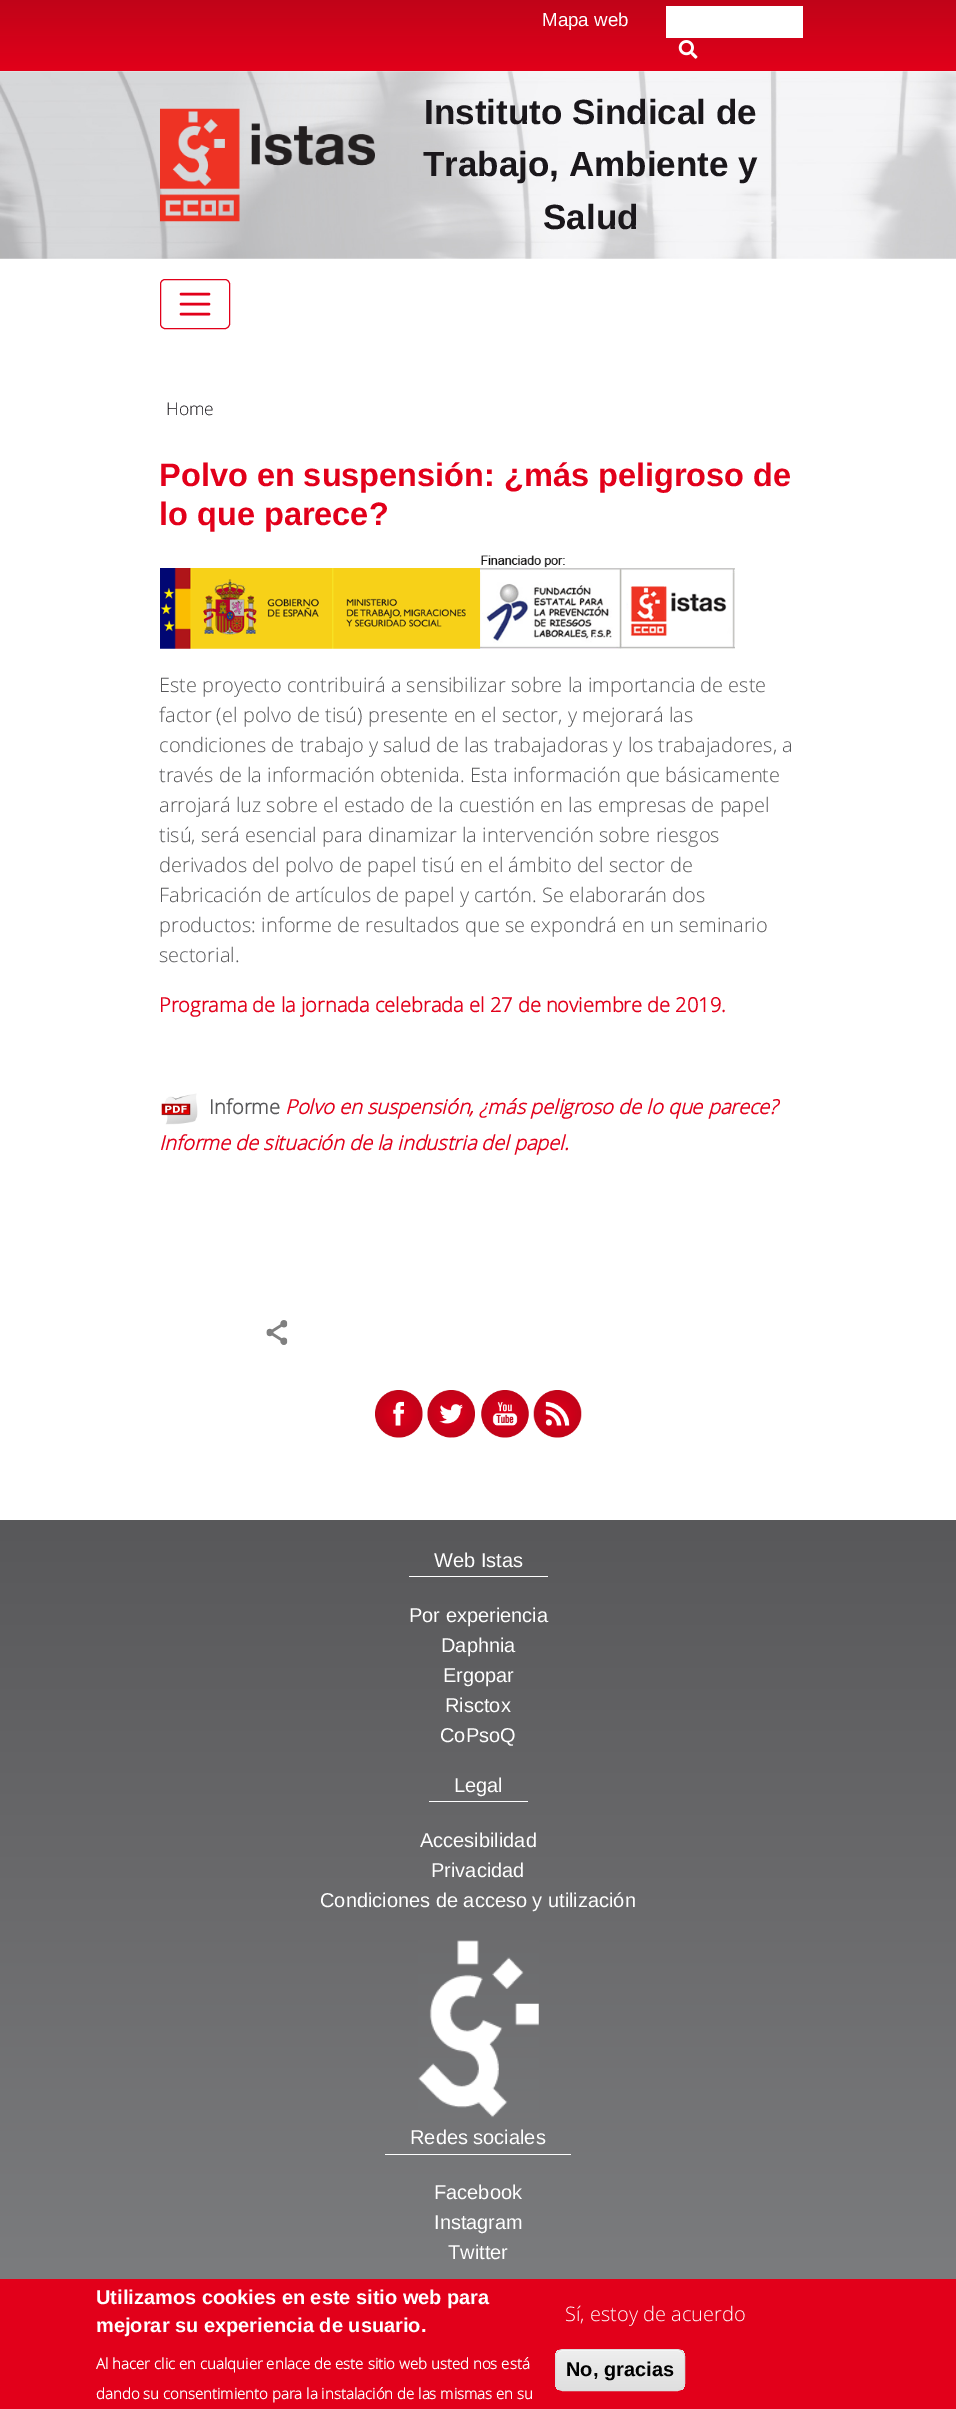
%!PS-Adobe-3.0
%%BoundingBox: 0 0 956 2409
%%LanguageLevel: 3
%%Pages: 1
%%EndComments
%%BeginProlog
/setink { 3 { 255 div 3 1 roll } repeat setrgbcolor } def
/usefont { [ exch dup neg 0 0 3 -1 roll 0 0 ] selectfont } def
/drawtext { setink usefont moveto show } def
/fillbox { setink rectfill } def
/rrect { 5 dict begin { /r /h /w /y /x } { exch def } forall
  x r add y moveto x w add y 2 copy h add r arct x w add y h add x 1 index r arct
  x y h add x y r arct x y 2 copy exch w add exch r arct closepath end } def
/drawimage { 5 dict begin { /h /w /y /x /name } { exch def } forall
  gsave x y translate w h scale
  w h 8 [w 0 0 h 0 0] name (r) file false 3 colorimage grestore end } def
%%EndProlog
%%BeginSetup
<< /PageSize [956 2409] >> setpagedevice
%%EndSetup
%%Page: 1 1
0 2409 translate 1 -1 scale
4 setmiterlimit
0 0 956 2409 255 255 255 fillbox
gsave 0 0 moveto 956 0 lineto 956 71 lineto 0 71 lineto closepath clip newpath
<< /ShadingType 2 /ColorSpace /DeviceRGB /Coords [478 0 478 71] /Extend [true true] /Function << /FunctionType 2 /Domain [0 1] /C0 [0.753 0.016 0.094] /C1 [0.886 0 0.102] /N 1 >> >> shfill grestore
(Mapa web) 542 26 /LiberationSans-Regular 18.75 255 255 255 drawtext
666 6 137 32 255 255 255 fillbox
(assets/img1.rgb) 678 40 20 19 drawimage
(assets/img2.rgb) 0 71 956 188 drawimage
(assets/img3.rgb) 160 108 215 114 drawimage
(Instituto Sindical de) 424 124 /LiberationSans-Bold 35 26 23 27 drawtext
(Trabajo, Ambiente y) 423 176 /LiberationSans-Bold 35 26 23 27 drawtext
(Salud) 543 229 /LiberationSans-Bold 35 26 23 27 drawtext
226 0 26 setink
160.5 279.5 69 49 4.5 rrect stroke
2.5 setlinewidth
1 setlinecap
181 294 moveto 209 294 lineto 181 304 moveto 209 304 lineto 181 314 moveto 209 314 lineto stroke
(Home) 166 415 /OpenSans-Light 17.5 26 23 27 drawtext
(Polvo en suspensión: ¿más peligroso de) 159 486 /LiberationSans-Bold 32.5 226 0 26 drawtext
(lo que parece?) 159 525 /LiberationSans-Bold 32.5 226 0 26 drawtext
(assets/img4.rgb) 160 555 575 94 drawimage
(Este proyecto contribuirá a sensibilizar sobre la importancia de este) 159 692 /OpenSans-Light 20 88 88 90 drawtext
(factor \(el polvo de tisú\) presente en el sector, y mejorará las) 159 722 /OpenSans-Light 20 88 88 90 drawtext
(condiciones de trabajo y salud de las trabajadoras y los trabajadores, a) 159 752 /OpenSans-Light 20 88 88 90 drawtext
(través de la información obtenida. Esta información que básicamente) 159 782 /OpenSans-Light 20 88 88 90 drawtext
(arrojará luz sobre el estado de la cuestión en las empresas de papel) 159 812 /OpenSans-Light 20 88 88 90 drawtext
(tisú, será esencial para dinamizar la intervención sobre riesgos) 159 842 /OpenSans-Light 20 88 88 90 drawtext
(derivados del polvo de papel tisú en el ámbito del sector de) 159 872 /OpenSans-Light 20 88 88 90 drawtext
(Fabricación de artículos de papel y cartón. Se elaborarán dos) 159 902 /OpenSans-Light 20 88 88 90 drawtext
(productos: informe de resultados que se expondrá en un seminario) 159 932 /OpenSans-Light 20 88 88 90 drawtext
(sectorial.) 159 962 /OpenSans-Light 20 88 88 90 drawtext
(Programa de la jornada celebrada el 27 de noviembre de 2019.) 159 1012 /OpenSans-Bold 20 226 0 26 drawtext
(assets/img5.rgb) 161 1093 37 32 drawimage
(Informe) 209 1114 /OpenSans-Bold 20 88 88 90 drawtext
(Polvo en suspensión, ¿más peligroso de lo que parece?) 285 1114 /OpenSans-BoldItalic 20 226 0 26 drawtext
(Informe de situación de la industria del papel.) 159 1150 /OpenSans-BoldItalic 20 226 0 26 drawtext
(assets/img6.rgb) 266 1320 22 25 drawimage
(assets/img7.rgb) 375 1390 48 48 drawimage
(assets/img8.rgb) 427 1390 48 48 drawimage
(assets/img9.rgb) 481 1390 48 48 drawimage
(assets/img10.rgb) 533 1390 49 48 drawimage
gsave 0 1520 moveto 956 1520 lineto 956 2279 lineto 0 2279 lineto closepath clip newpath
<< /ShadingType 2 /ColorSpace /DeviceRGB /Coords [478 1520 478 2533] /Extend [true true] /Function << /FunctionType 2 /Domain [0 1] /C0 [0.345 0.345 0.353] /C1 [0.529 0.533 0.541] /N 1 >> >> shfill grestore
(Web Istas) 434 1567 /LiberationSans-Regular 20 255 255 255 drawtext
409 1576 139 1 255 255 255 fillbox
(Por experiencia) 409 1622 /LiberationSans-Regular 20 255 255 255 drawtext
(Daphnia) 441 1652 /LiberationSans-Regular 20 255 255 255 drawtext
(Ergopar) 443 1682 /LiberationSans-Regular 20 255 255 255 drawtext
(Risctox) 445 1712 /LiberationSans-Regular 20 255 255 255 drawtext
(CoPsoQ) 440 1742 /LiberationSans-Regular 20 255 255 255 drawtext
(Legal) 454 1792 /LiberationSans-Regular 20 255 255 255 drawtext
429 1801 99 1 255 255 255 fillbox
(Accesibilidad) 420 1847 /LiberationSans-Regular 20 255 255 255 drawtext
(Privacidad) 431 1877 /LiberationSans-Regular 20 255 255 255 drawtext
(Condiciones de acceso y utilización) 320 1907 /LiberationSans-Regular 20 255 255 255 drawtext
(assets/img11.rgb) 418 1940 121 178 drawimage
(Redes sociales) 410 2144 /LiberationSans-Regular 20 255 255 255 drawtext
385 2154 186 1 255 255 255 fillbox
(Facebook) 434 2199 /LiberationSans-Regular 20 255 255 255 drawtext
(Instagram) 434 2229 /LiberationSans-Regular 20 255 255 255 drawtext
(Twitter) 448 2259 /LiberationSans-Regular 20 255 255 255 drawtext
0 2279 956 130 226 0 26 fillbox
(Utilizamos cookies en este sitio web para) 96 2304 /LiberationSans-Bold 20 255 255 255 drawtext
(mejorar su experiencia de usuario.) 96 2332 /LiberationSans-Bold 20 255 255 255 drawtext
(Al hacer clic en cualquier enlace de este sitio web usted nos está) 96 2369 /OpenSans-Bold 15 255 255 255 drawtext
(dando su consentimiento para la instalación de las mismas en su) 96 2399 /OpenSans-Bold 15 255 255 255 drawtext
(Sí, estoy de acuerdo) 565 2321 /OpenSans-Light 20 255 255 255 drawtext
gsave
555 2349 130 42 8 rrect clip newpath
gsave 555 2350 moveto 685 2350 lineto 685 2390 lineto 555 2390 lineto closepath clip newpath
<< /ShadingType 2 /ColorSpace /DeviceRGB /Coords [620 2350 620 2390] /Extend [true true] /Function << /FunctionType 3 /Domain [0 1] /Functions [<< /FunctionType 2 /Domain [0 1] /C0 [0.929 0.929 0.929] /C1 [0.929 0.929 0.929] /N 1 >> << /FunctionType 2 /Domain [0 1] /C0 [0.929 0.929 0.929] /C1 [0.875 0.875 0.875] /N 1 >>] /Bounds [0.05] /Encode [0 1 0 1] >> >> shfill grestore
grestore
562 2351 moveto 678 2351 lineto 681 2351 684 2354 684 2358 curveto 684 2356 lineto 684 2353 681 2350 678 2350 curveto 562 2350 lineto 559 2350 556 2353 556 2356 curveto 556 2358 lineto 556 2354 559 2351 562 2351 curveto closepath fill
220 220 220 setink
1 setlinewidth
0 setlinecap
555.5 2349.5 129 41 7.5 rrect stroke
(No, gracias) 566 2376 /LiberationSans-Bold 20 0 0 0 drawtext
showpage
%%EOF
